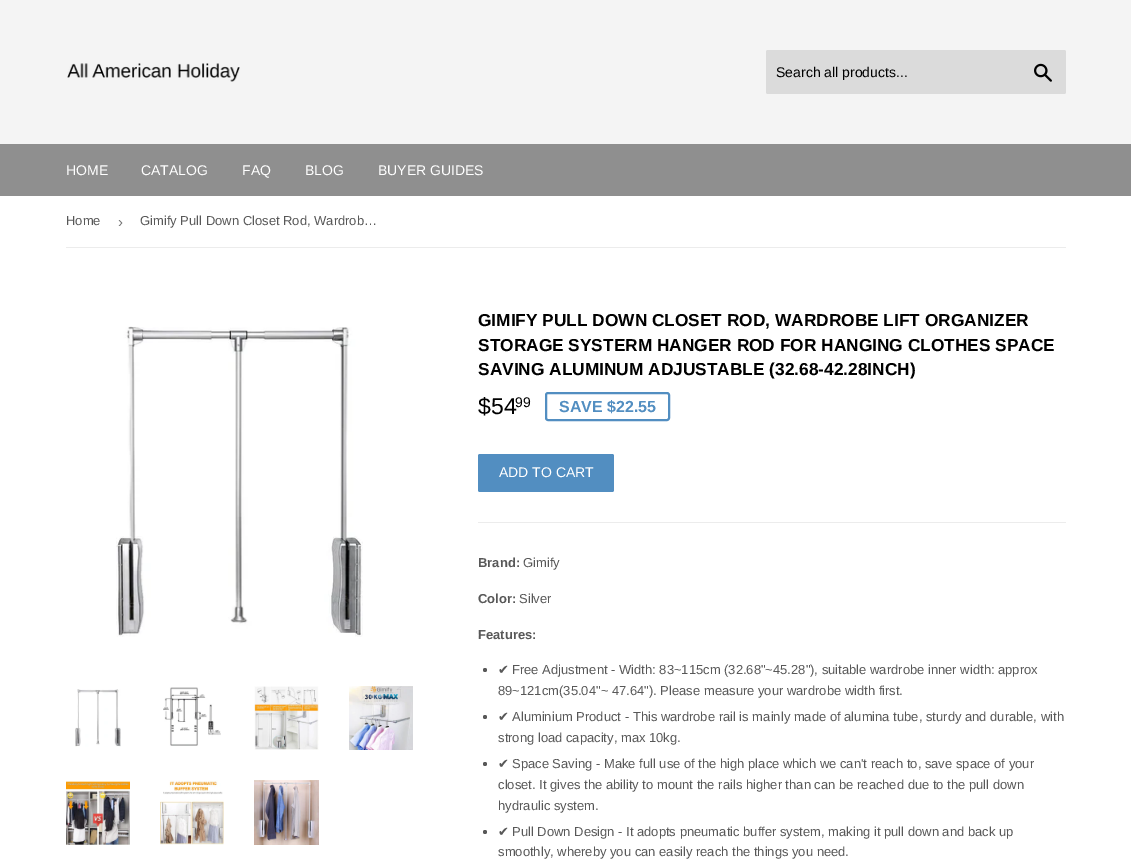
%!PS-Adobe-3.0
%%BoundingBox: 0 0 1131 864
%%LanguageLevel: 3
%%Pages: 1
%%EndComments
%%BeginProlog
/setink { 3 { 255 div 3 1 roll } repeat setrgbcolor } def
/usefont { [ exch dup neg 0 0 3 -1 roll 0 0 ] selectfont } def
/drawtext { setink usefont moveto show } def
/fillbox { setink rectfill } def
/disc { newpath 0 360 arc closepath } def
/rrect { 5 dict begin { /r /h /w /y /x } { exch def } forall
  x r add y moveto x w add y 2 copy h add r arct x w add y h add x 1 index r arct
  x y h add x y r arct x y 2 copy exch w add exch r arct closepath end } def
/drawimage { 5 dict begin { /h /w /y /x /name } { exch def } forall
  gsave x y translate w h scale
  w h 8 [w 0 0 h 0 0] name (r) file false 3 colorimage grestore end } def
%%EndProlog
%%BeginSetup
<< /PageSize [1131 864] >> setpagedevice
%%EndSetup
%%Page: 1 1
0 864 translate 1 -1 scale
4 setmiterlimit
0 0 1131 864 255 255 255 fillbox
0 0 1131 144 244 244 244 fillbox
(assets/img1.rgb) 67 63 173 19 drawimage
219 219 219 setink
766 50 300 44 2 rrect fill
(Search all products...) 776 77 /Arimo-Regular 14 0 0 0 drawtext
(assets/img2.rgb) 1034 63 18 19 drawimage
0 144 1131 52 143 143 143 fillbox
(HOME) 66 175 /Arimo-Regular 14 255 255 255 drawtext
(CATALOG) 141 175 /Arimo-Regular 14 255 255 255 drawtext
(FAQ) 242 175 /Arimo-Regular 14 255 255 255 drawtext
(BLOG) 305 175 /Arimo-Regular 14 255 255 255 drawtext
(BUYER GUIDES) 378 175 /Arimo-Regular 14 255 255 255 drawtext
66 247 1000 1 236 236 236 fillbox
(Home) 66 225 /Arimo-Regular 13 88 88 88 drawtext
(›) 118 227 /LiberationSans-Regular 15 118 118 118 drawtext
(Gimify Pull Down Closet Rod, Wardrob…) 140 225 /Arimo-Regular 13 88 88 88 drawtext
(assets/img3.rgb) 116 326 247 311 drawimage
(assets/img4.rgb) 75 689 46 58 drawimage
(assets/img5.rgb) 163 687 58 59 drawimage
(assets/img6.rgb) 254 686 65 64 drawimage
(assets/img7.rgb) 349 686 64 64 drawimage
(assets/img8.rgb) 66 781 64 64 drawimage
(assets/img9.rgb) 160 780 64 65 drawimage
(assets/img10.rgb) 254 780 65 65 drawimage
(GIMIFY PULL DOWN CLOSET ROD, WARDROBE LIFT ORGANIZER) 478 326 /Arimo-Bold 17.3 0 0 0 drawtext
(STORAGE SYSTERM HANGER ROD FOR HANGING CLOTHES SPACE) 478 351 /Arimo-Bold 17.3 0 0 0 drawtext
(SAVING ALUMINUM ADJUSTABLE \(32.68-42.28INCH\)) 478 375 /Arimo-Bold 17.3 0 0 0 drawtext
($54) 478 414 /Arimo-Regular 23 0 0 0 drawtext
(99) 515 407 /Arimo-Regular 14 0 0 0 drawtext
82 142 193 setink
2 setlinewidth
546 393 123 27 2 rrect stroke
(SAVE $22.55) 559 412 /Arimo-Bold 16 82 142 193 drawtext
478 454 136 38 2 rrect fill
(ADD TO CART) 499 477 /Arimo-Regular 14 255 255 255 drawtext
478 522 588 1 236 236 236 fillbox
(Brand:) 478 567 /Arimo-Bold 13 88 88 88 drawtext
(Gimify) 523 567 /Arimo-Regular 13 88 88 88 drawtext
(Color:) 478 603 /Arimo-Bold 13 88 88 88 drawtext
(Silver) 519 603 /Arimo-Regular 13 88 88 88 drawtext
(Features:) 478 639 /Arimo-Bold 13 88 88 88 drawtext
485 670 2 disc fill
(✔) 498 674 /DejaVuSans-Regular 13 88 88 88 drawtext
(Free Adjustment - Width: 83~115cm \(32.68"~45.28"\), suitable wardrobe inner width: approx) 512 674 /Arimo-Regular 13 88 88 88 drawtext
(89~121cm\(35.04"~ 47.64"\). Please measure your wardrobe width first.) 498 695 /Arimo-Regular 13 88 88 88 drawtext
485 717 2 disc fill
(✔) 498 721 /DejaVuSans-Regular 13 88 88 88 drawtext
(Aluminium Product - This wardrobe rail is mainly made of alumina tube, sturdy and durable, with) 512 721 /Arimo-Regular 13 88 88 88 drawtext
(strong load capacity, max 10kg.) 498 742 /Arimo-Regular 13 88 88 88 drawtext
485 764 2 disc fill
(✔) 498 768 /DejaVuSans-Regular 13 88 88 88 drawtext
(Space Saving - Make full use of the high place which we can't reach to, save space of your) 512 768 /Arimo-Regular 13 88 88 88 drawtext
(closet. It gives the ability to mount the rails higher than can be reached due to the pull down) 498 789 /Arimo-Regular 13 88 88 88 drawtext
(hydraulic system.) 498 810 /Arimo-Regular 13 88 88 88 drawtext
485 832 2 disc fill
(✔) 498 836 /DejaVuSans-Regular 13 88 88 88 drawtext
(Pull Down Design - It adopts pneumatic buffer system, making it pull down and back up) 512 836 /Arimo-Regular 13 88 88 88 drawtext
(smoothly, whereby you can easily reach the things you need.) 498 856 /Arimo-Regular 13 88 88 88 drawtext
showpage
%%EOF
